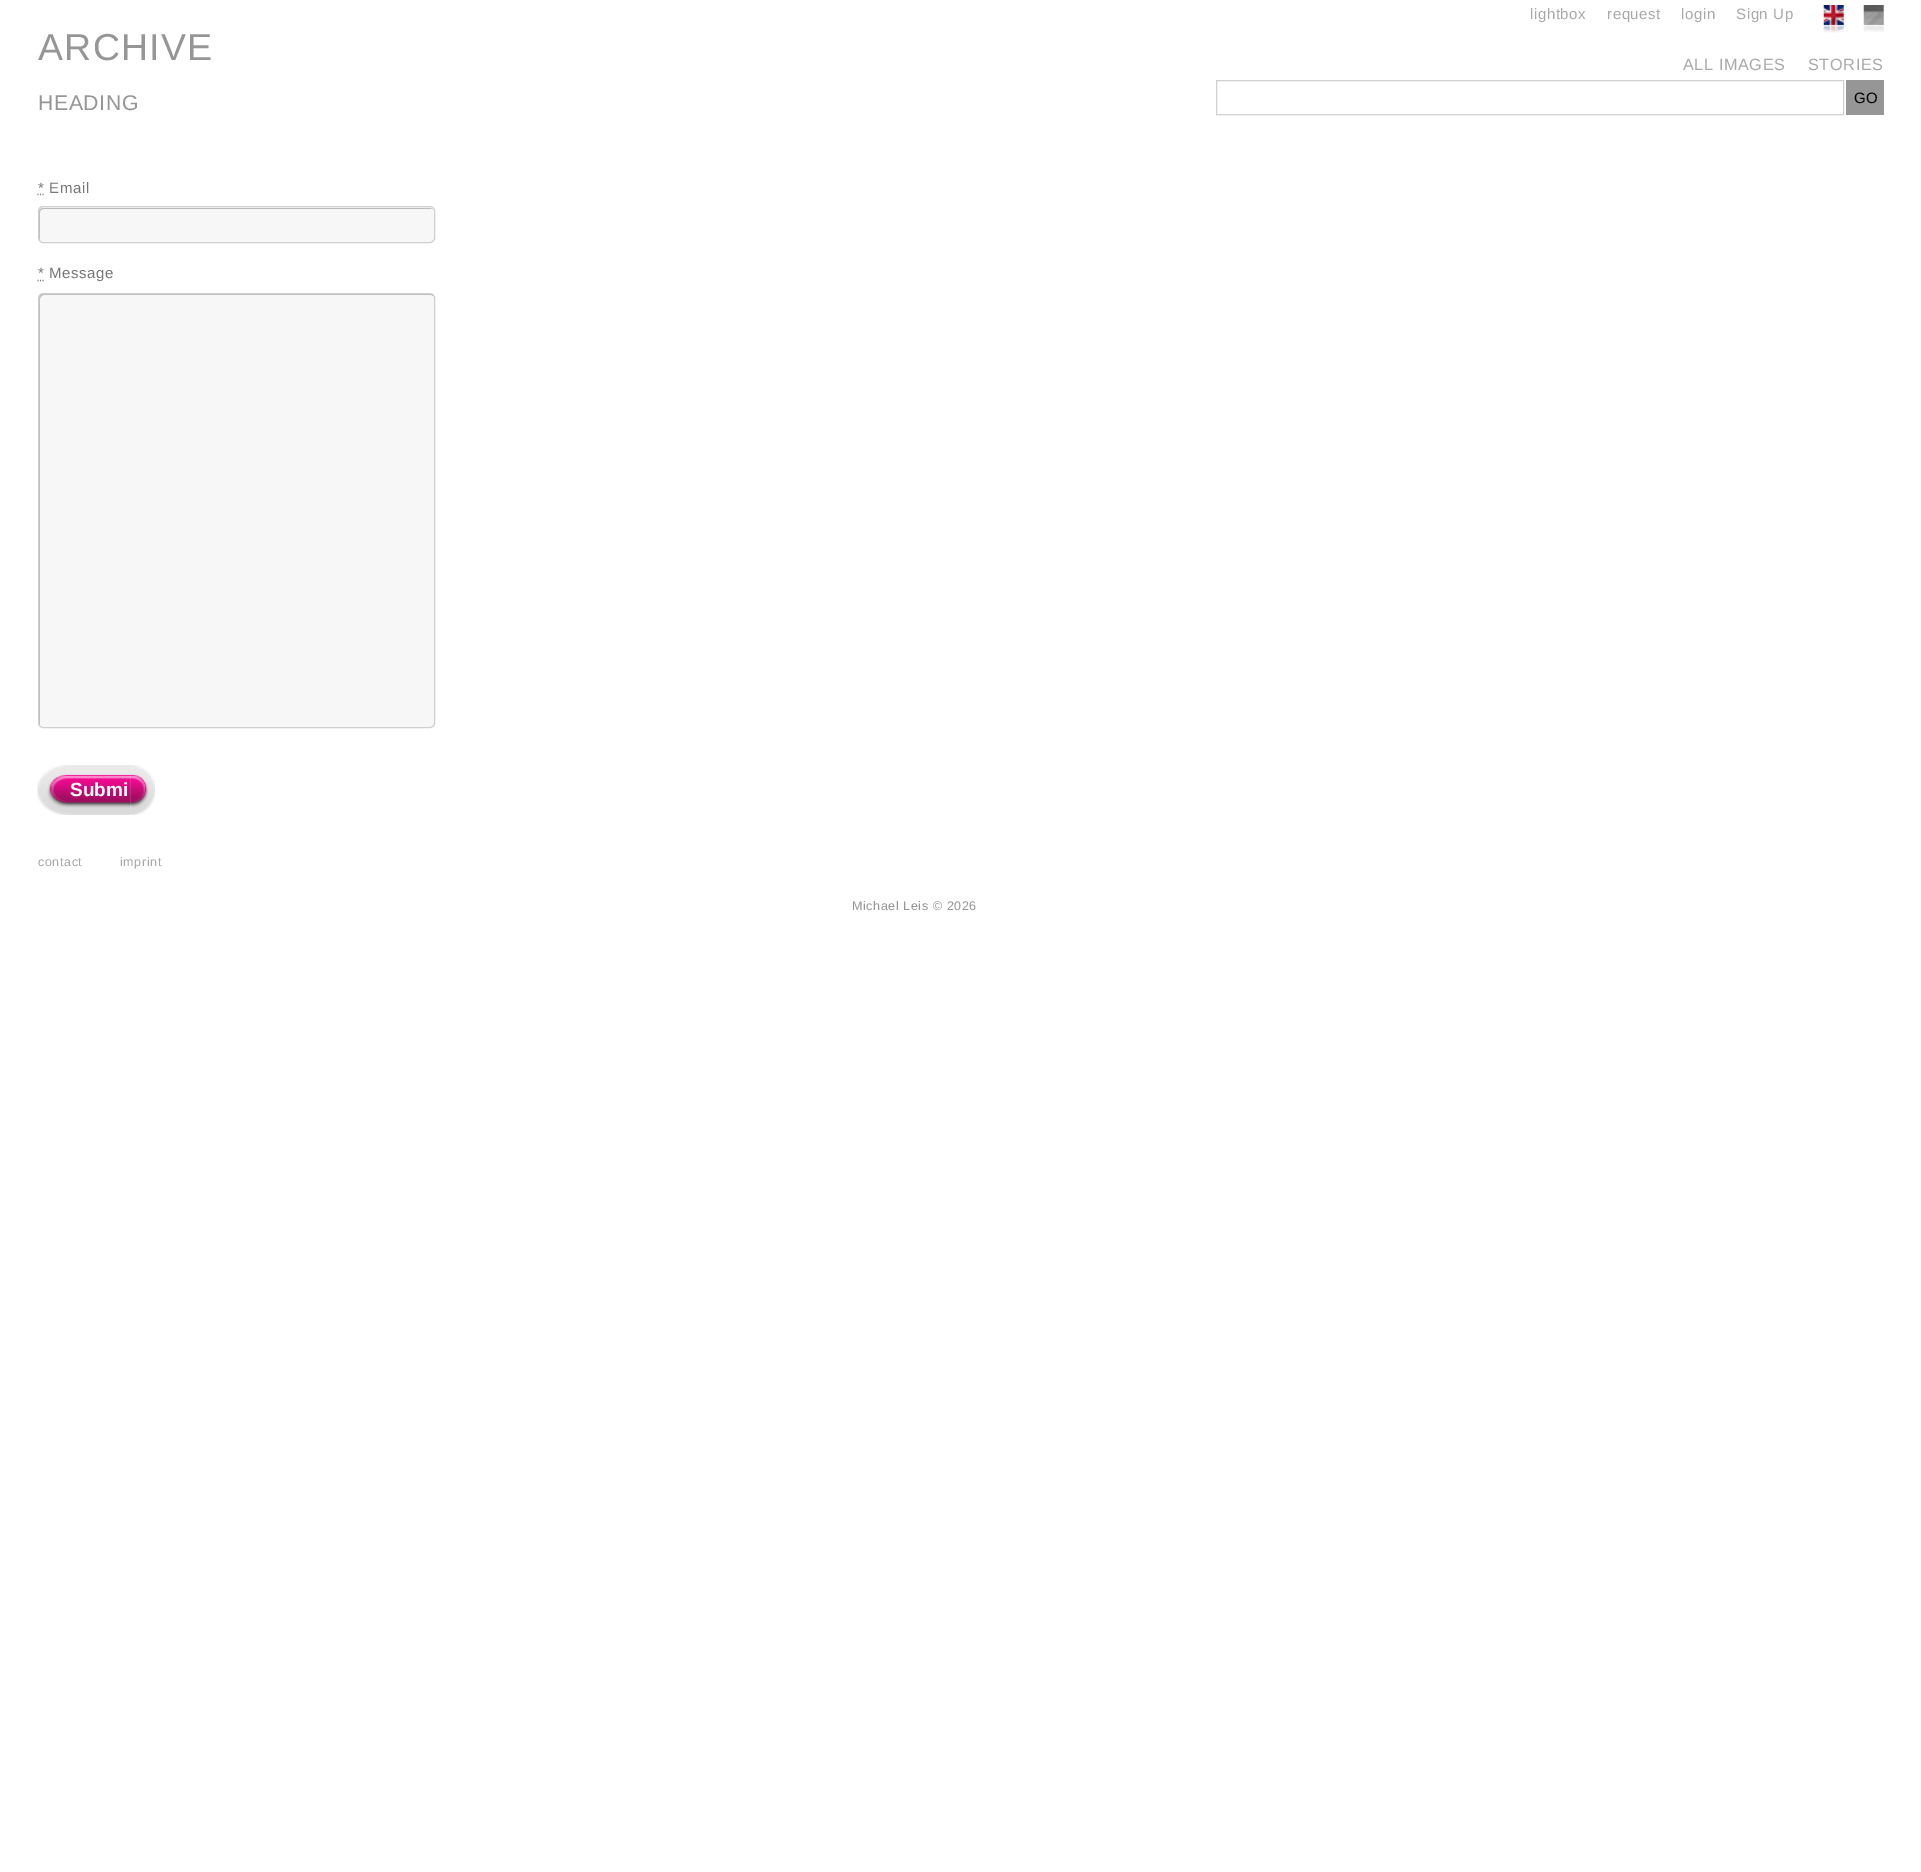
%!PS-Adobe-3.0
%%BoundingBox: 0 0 1921 1872
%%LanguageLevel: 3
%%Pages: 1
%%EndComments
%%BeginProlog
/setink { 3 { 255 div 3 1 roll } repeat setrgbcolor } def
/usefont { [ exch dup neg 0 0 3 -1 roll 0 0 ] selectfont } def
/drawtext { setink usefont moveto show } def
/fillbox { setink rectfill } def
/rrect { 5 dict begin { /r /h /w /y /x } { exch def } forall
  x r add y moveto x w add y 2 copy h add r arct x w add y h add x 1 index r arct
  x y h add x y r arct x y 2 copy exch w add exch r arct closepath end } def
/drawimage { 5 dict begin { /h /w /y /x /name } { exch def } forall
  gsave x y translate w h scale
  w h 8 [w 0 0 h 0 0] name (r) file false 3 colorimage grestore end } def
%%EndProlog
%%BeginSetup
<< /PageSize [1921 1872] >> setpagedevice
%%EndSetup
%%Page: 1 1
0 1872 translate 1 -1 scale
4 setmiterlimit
0 0 1921 1872 255 255 255 fillbox
/LiberationSans-Regular 37.5 usefont
150 150 150 setink
38 60 moveto 1.25 0 (ARCHIVE) ashow
/LiberationSans-Regular 21.25 usefont
38 110 moveto 0.6 0 (HEADING) ashow
/LiberationSans-Regular 15 usefont
169 169 169 setink
1530 19 moveto 0.6 0 (lightbox) ashow
1607 19 moveto 0.6 0 (request) ashow
1681 19 moveto 0.6 0 (login) ashow
1736 19 moveto 0.6 0 (Sign Up) ashow
(assets/img1.rgb) 1823 5 21 28 drawimage
(assets/img2.rgb) 1863 5 21 27 drawimage
/LiberationSans-Regular 16.25 usefont
1683 70 moveto 0.6 0 (ALL IMAGES) ashow
1808 70 moveto 0.6 0 (STORIES) ashow
208 208 208 setink
1216.5 80.5 627 34 rectstroke
1846 80 38 35 150 150 150 fillbox
(GO) 1854 103 /LiberationSans-Regular 15 0 0 0 drawtext
118 118 118 setink
1.2 setlinewidth
37.5 194.5 moveto 38.5 194.5 lineto 40 194.5 moveto 41 194.5 lineto 42.5 194.5 moveto 43.5 194.5 lineto stroke
38 193 moveto 0.6 0 (* Email) ashow
247 247 247 setink
38 206 397 37 5 rrect fill
187 187 187 setink
44 209 moveto 431 209 lineto 433 209 lineto 432 209 431 208 430 208 curveto 43 208 lineto 41 208 39 210 39 212 curveto 39 237 lineto 39 238 39 239 40 240 curveto 40 216 lineto 40 213 39 209 44 209 curveto closepath fill
208 208 208 setink
1 setlinewidth
38.5 206.5 396 36 4.5 rrect stroke
118 118 118 setink
1.2 setlinewidth
37.5 280.5 moveto 38.5 280.5 lineto 40 280.5 moveto 41 280.5 lineto 42.5 280.5 moveto 43.5 280.5 lineto stroke
38 278 moveto 0.6 0 (* Message) ashow
247 247 247 setink
38 293 397 435 5 rrect fill
187 187 187 setink
44 295 moveto 431 295 lineto 433 296 lineto 433 295 431 294 430 294 curveto 43 294 lineto 41 294 39 296 39 298 curveto 39 722 lineto 39 723 39 724 40 725 curveto 40 299 lineto 40 297 42 295 44 295 curveto closepath fill
208 208 208 setink
1 setlinewidth
38.5 293.5 396 434 4.5 rrect stroke
(assets/img3.rgb) 129 765 26 50 drawimage
(assets/img4.rgb) 37 765 93 50 drawimage
(Submi) 70 796 /LiberationSans-Bold 19 255 255 255 drawtext
/LiberationSans-Regular 12.5 usefont
169 169 169 setink
38 866 moveto 0.6 0 (contact) ashow
120 866 moveto 0.6 0 (imprint) ashow
150 150 150 setink
852 910 moveto 0.6 0 (Michael Leis © 2026) ashow
showpage
%%EOF
